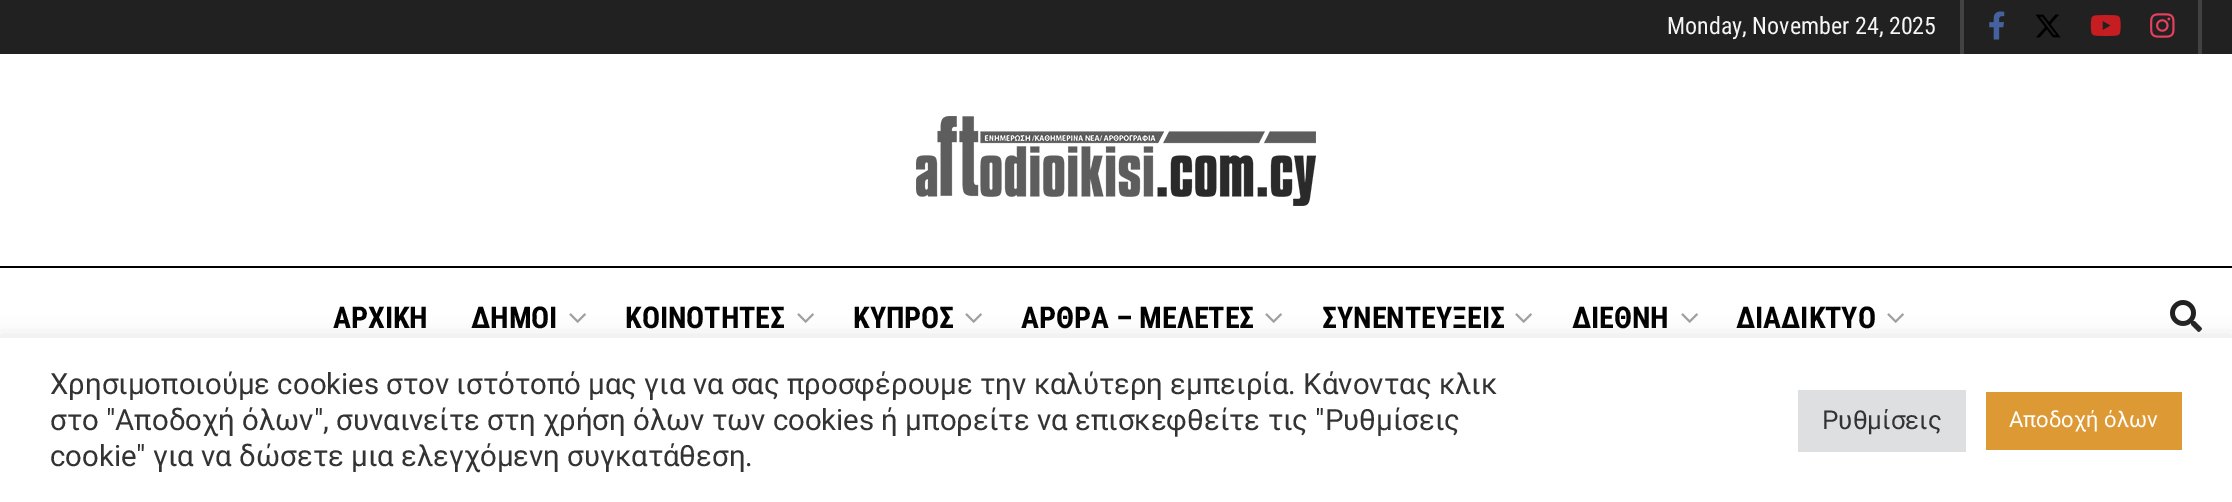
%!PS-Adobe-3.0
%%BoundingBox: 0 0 2232 502
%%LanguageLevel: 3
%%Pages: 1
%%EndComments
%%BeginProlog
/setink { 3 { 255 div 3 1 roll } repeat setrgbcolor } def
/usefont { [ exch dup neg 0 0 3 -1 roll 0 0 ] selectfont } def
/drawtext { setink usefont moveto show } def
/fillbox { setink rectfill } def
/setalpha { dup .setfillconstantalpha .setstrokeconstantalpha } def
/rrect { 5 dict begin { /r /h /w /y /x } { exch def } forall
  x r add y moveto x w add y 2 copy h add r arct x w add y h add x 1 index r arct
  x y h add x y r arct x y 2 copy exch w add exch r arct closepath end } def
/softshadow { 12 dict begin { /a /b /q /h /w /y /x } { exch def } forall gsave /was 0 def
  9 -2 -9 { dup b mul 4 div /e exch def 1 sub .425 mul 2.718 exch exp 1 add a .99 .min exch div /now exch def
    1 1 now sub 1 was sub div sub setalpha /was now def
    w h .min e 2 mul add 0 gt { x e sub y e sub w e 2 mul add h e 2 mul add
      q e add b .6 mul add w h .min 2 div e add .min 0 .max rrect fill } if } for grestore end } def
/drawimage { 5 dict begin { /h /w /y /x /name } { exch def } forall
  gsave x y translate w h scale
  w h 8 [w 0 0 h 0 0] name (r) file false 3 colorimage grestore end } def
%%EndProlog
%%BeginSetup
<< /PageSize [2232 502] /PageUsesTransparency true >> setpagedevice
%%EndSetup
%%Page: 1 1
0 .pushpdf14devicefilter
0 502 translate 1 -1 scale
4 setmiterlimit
0 0 2232 502 255 255 255 fillbox
0 0 2232 54 33 33 33 fillbox
2198 0 4 54 66 66 66 fillbox
1960 0 4 54 66 66 66 fillbox
(Monday, November 24, 2025) 1667 34 /RobotoCondensed-Regular 24 245 245 245 drawtext
(assets/img1.rgb) 1989 11 16 29 drawimage
(assets/img2.rgb) 2035 14 26 24 drawimage
(assets/img3.rgb) 2090 15 31 21 drawimage
(assets/img4.rgb) 2150 13 25 25 drawimage
(assets/img5.rgb) 916 116 400 90 drawimage
0 266 2232 2 0 0 0 fillbox
(ΑΡΧΙΚΗ) 333 328 /RobotoCondensed-Bold 30 0 0 0 drawtext
(ΔΗΜΟΙ) 471 328 /RobotoCondensed-Bold 30 0 0 0 drawtext
(assets/img6.rgb) 569 313 17 10 drawimage
(ΚΟΙΝΟΤΗΤΕΣ) 625 328 /RobotoCondensed-Bold 30 0 0 0 drawtext
(assets/img6.rgb) 797 313 17 10 drawimage
(ΚΥΠΡΟΣ) 853 328 /RobotoCondensed-Bold 30 0 0 0 drawtext
(assets/img6.rgb) 965 313 17 10 drawimage
(ΑΡΘΡΑ – ΜΕΛΕΤΕΣ) 1021 328 /RobotoCondensed-Bold 30 0 0 0 drawtext
(assets/img6.rgb) 1265 313 17 10 drawimage
(ΣΥΝΕΝΤΕΥΞΕΙΣ) 1322 328 /RobotoCondensed-Bold 30 0 0 0 drawtext
(assets/img6.rgb) 1515 313 17 10 drawimage
(ΔΙΕΘΝΗ) 1572 328 /RobotoCondensed-Bold 30 0 0 0 drawtext
(assets/img6.rgb) 1681 313 17 10 drawimage
(ΔΙΑΔΙΚΤΥΟ) 1736 328 /RobotoCondensed-Bold 30 0 0 0 drawtext
(assets/img6.rgb) 1887 313 17 10 drawimage
(assets/img7.rgb) 2170 300 32 32 drawimage
172 171 171 setink
0 336 2232 164 0 10 0.3 softshadow
0 338 2232 164 255 255 255 fillbox
(Χρησιμοποιούμε cookies στον ιστότοπό μας για να σας προσφέρουμε την καλύτερη εμπειρία. Κάνοντας κλικ) 50 394 /Roboto-Regular 29.35 51 51 51 drawtext
(στο "Αποδοχή όλων", συναινείτε στη χρήση όλων των cookies ή μπορείτε να επισκεφθείτε τις "Ρυθμίσεις) 50 430 /Roboto-Regular 29.35 51 51 51 drawtext
(cookie" για να δώσετε μια ελεγχόμενη συγκατάθεση.) 50 466 /Roboto-Regular 29.35 51 51 51 drawtext
1798 390 168 62 222 223 224 fillbox
(Ρυθμίσεις) 1822 429 /Roboto-Regular 26 51 51 51 drawtext
1986 392 196 58 221 153 51 fillbox
(Αποδοχή όλων) 2009 427 /Roboto-Regular 22 255 255 255 drawtext
.poppdf14devicefilter showpage
%%EOF
